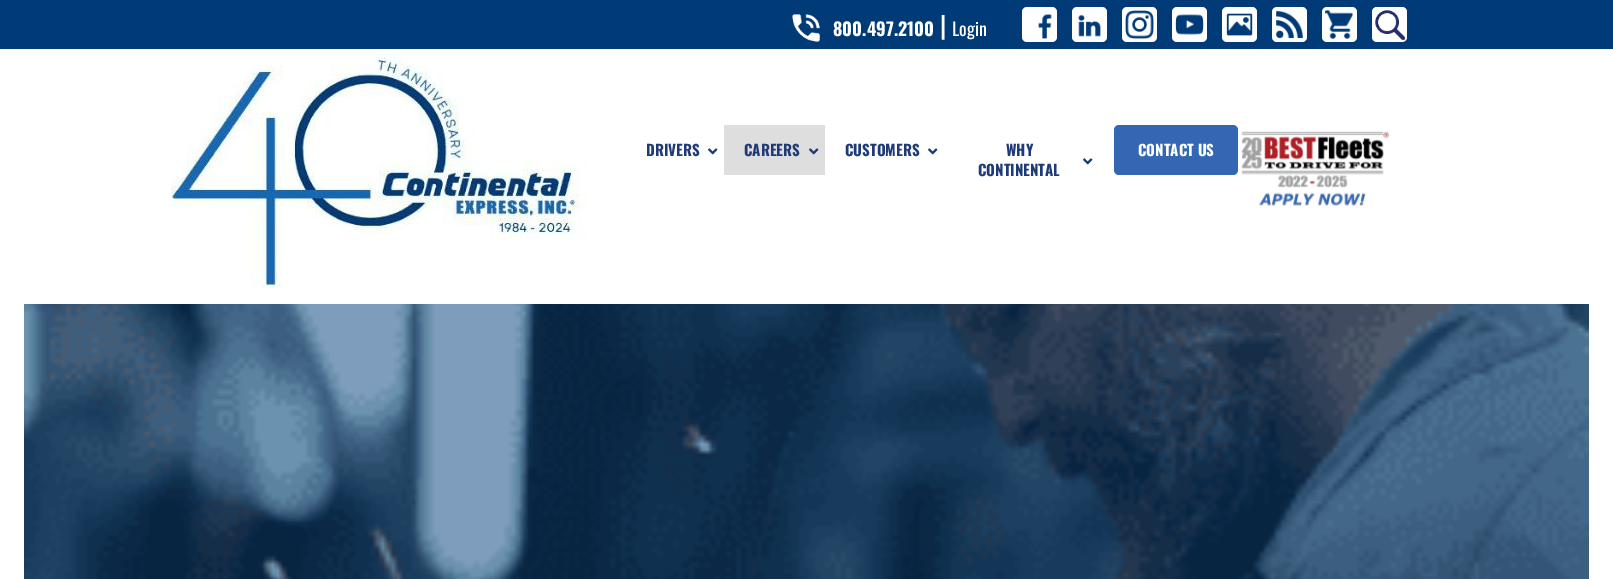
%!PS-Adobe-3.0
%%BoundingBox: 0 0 1613 579
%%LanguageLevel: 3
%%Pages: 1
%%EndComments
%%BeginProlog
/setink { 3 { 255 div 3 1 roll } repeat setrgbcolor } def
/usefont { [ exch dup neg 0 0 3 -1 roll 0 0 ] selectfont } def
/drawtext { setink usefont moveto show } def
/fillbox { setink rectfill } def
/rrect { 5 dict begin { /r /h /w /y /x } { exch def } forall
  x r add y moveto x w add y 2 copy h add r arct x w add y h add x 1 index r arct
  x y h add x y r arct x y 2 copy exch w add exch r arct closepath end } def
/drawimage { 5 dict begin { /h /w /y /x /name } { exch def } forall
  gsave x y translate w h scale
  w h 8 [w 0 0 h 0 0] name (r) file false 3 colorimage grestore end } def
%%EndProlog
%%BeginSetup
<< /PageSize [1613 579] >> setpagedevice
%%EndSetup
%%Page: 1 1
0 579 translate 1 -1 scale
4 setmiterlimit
0 0 1613 579 255 255 255 fillbox
0 0 1613 49 0 59 120 fillbox
(assets/img1.rgb) 792 14 28 28 drawimage
(800.497.2100) 833 36 /Oswald-Bold 18 255 255 255 drawtext
(|) 940 36 /Oswald-Regular 26 255 255 255 drawtext
(Login) 952 36 /Oswald-Regular 18 255 255 255 drawtext
1022 7 35 35 5 rrect fill
(assets/img2.rgb) 1038 14 14 25 drawimage
1072 7 35 35 5 rrect fill
(assets/img3.rgb) 1078 14 23 23 drawimage
1122 7 35 35 5 rrect fill
(assets/img4.rgb) 1125 10 29 29 drawimage
1172 7 35 35 5 rrect fill
(assets/img5.rgb) 1175 14 29 21 drawimage
1222 7 35 35 5 rrect fill
(assets/img6.rgb) 1226 13 27 23 drawimage
1272 7 35 35 5 rrect fill
(assets/img7.rgb) 1276 11 28 28 drawimage
1322 7 35 35 5 rrect fill
(assets/img8.rgb) 1325 10 29 29 drawimage
(assets/img9.rgb) 1372 7 35 35 drawimage
(assets/img10.rgb) 171 57 416 231 drawimage
(DRIVERS) 646 156 /Oswald-Bold 15 30 59 120 drawtext
(assets/img11.rgb) 708 148 10 7 drawimage
724 125 101 50 222 222 222 fillbox
(CAREERS) 744 156 /Oswald-Bold 15 30 59 120 drawtext
(assets/img12.rgb) 809 148 10 7 drawimage
(CUSTOMERS) 845 156 /Oswald-Bold 15 30 59 120 drawtext
(assets/img11.rgb) 928 148 10 7 drawimage
(WHY) 1006 156 /Oswald-Bold 15 30 59 120 drawtext
(CONTINENTAL) 978 176 /Oswald-Bold 15 30 59 120 drawtext
(assets/img11.rgb) 1083 158 10 7 drawimage
52 103 179 setink
1114 125 124 50 5 rrect fill
(CONTACT US) 1138 156 /Oswald-Bold 15 255 255 255 drawtext
(assets/img13.rgb) 1241 131 149 75 drawimage
(assets/img14.rgb) 24 304 1565 275 drawimage
showpage
%%EOF
